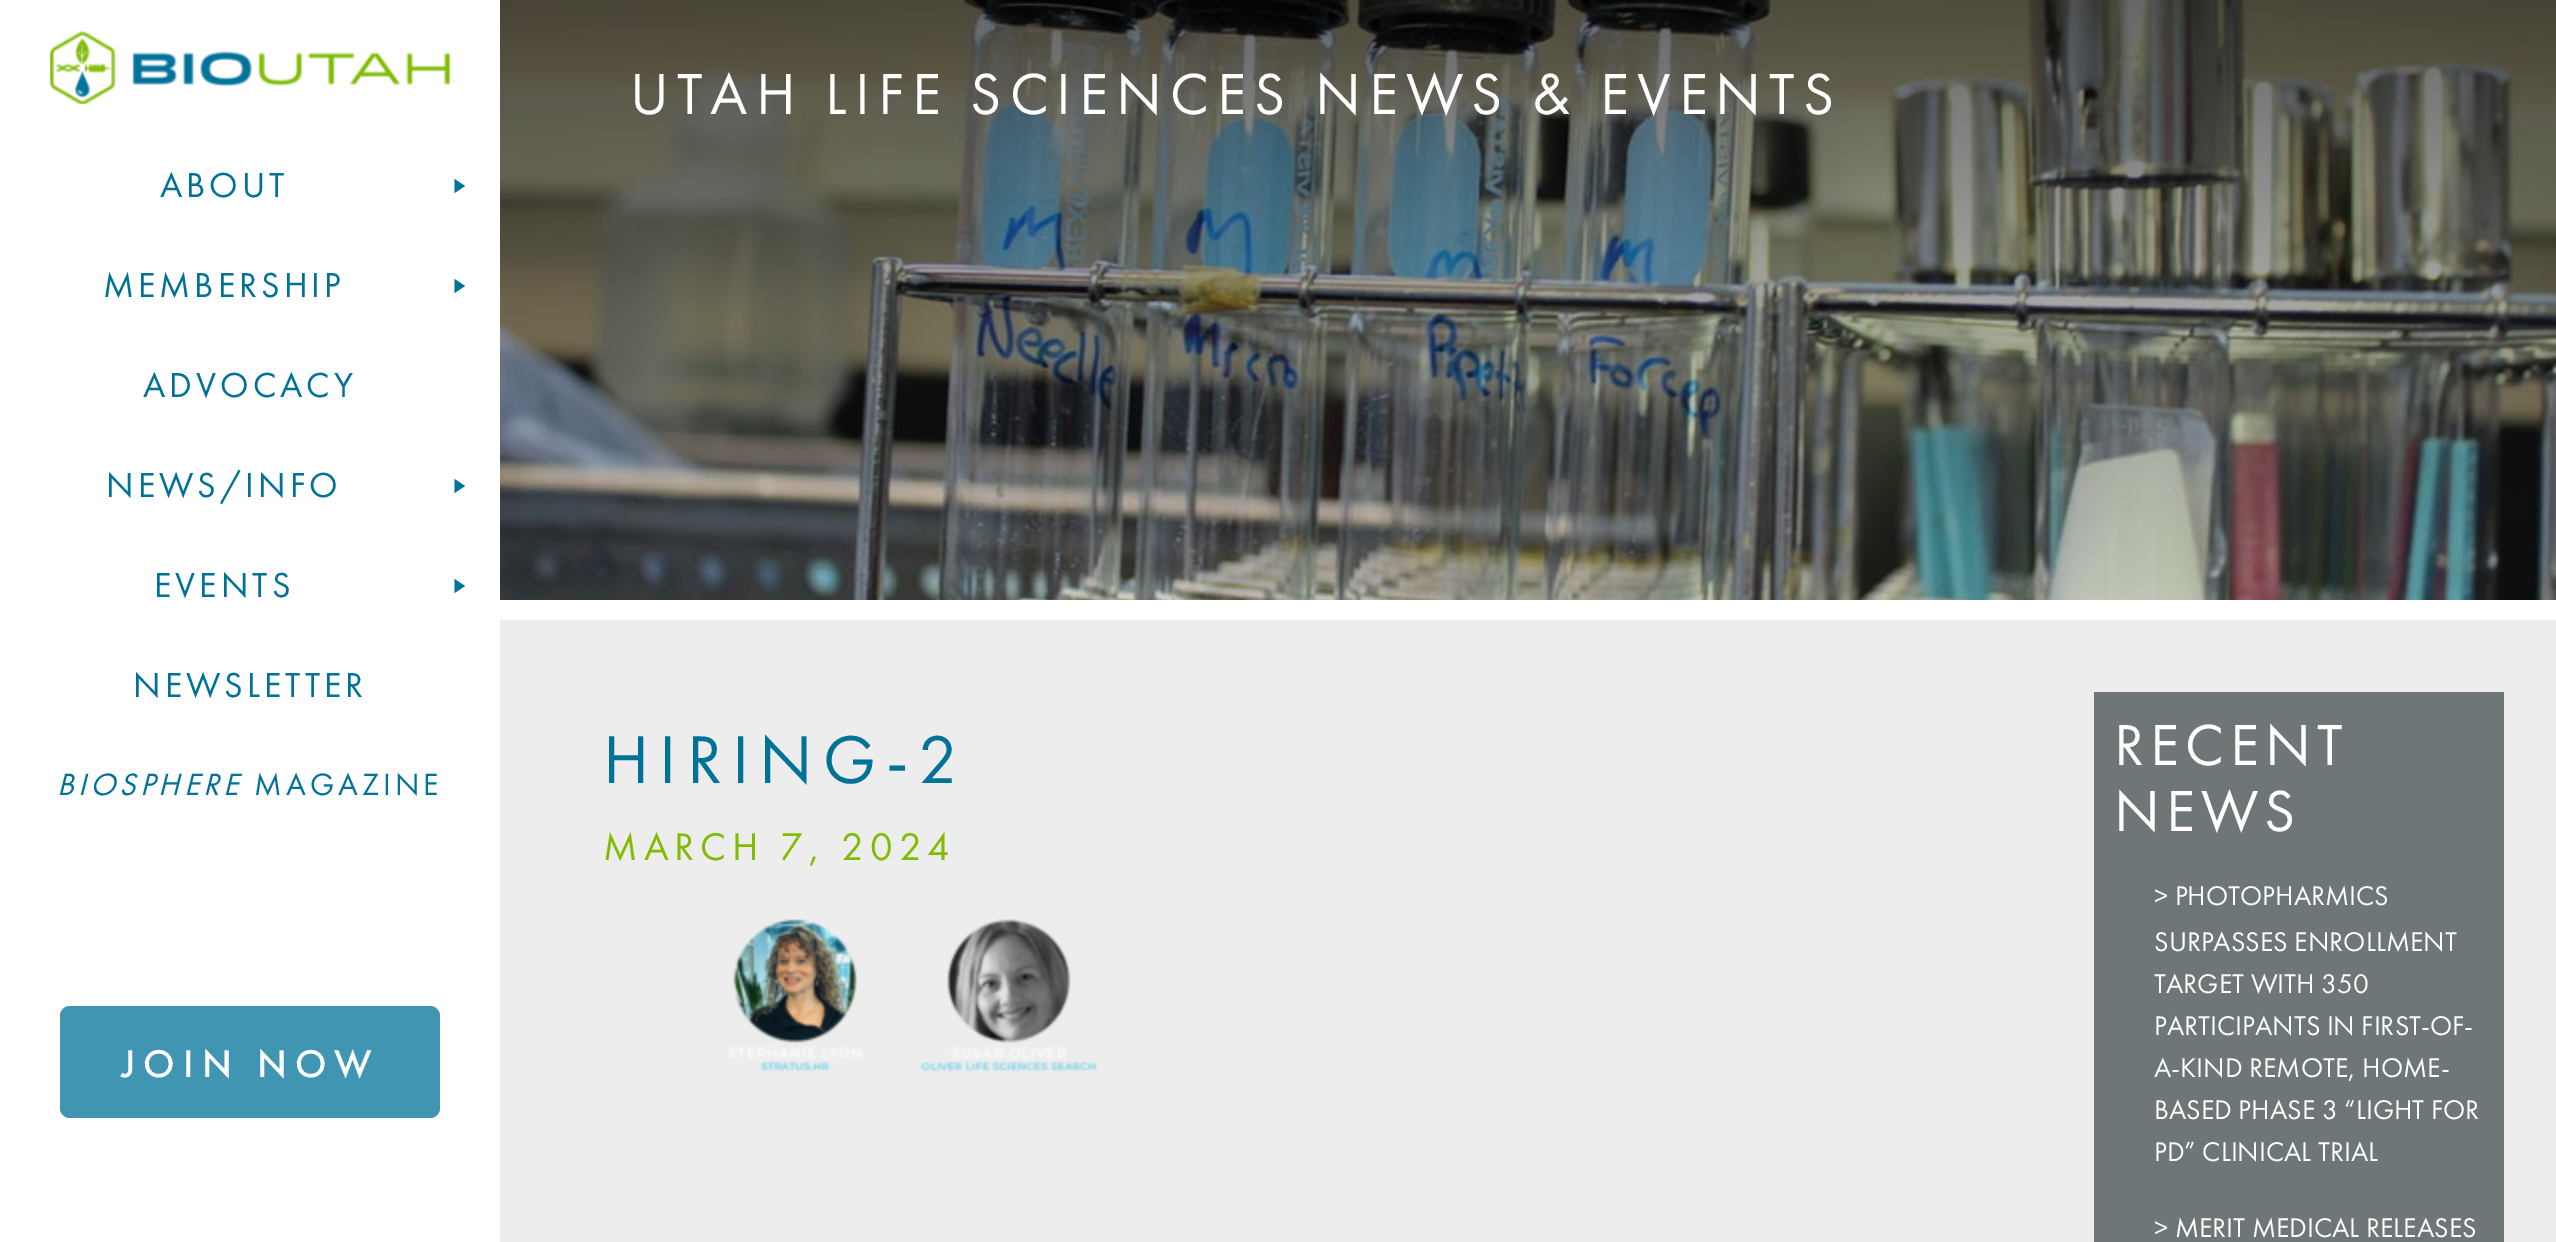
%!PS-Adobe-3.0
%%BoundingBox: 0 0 2556 1242
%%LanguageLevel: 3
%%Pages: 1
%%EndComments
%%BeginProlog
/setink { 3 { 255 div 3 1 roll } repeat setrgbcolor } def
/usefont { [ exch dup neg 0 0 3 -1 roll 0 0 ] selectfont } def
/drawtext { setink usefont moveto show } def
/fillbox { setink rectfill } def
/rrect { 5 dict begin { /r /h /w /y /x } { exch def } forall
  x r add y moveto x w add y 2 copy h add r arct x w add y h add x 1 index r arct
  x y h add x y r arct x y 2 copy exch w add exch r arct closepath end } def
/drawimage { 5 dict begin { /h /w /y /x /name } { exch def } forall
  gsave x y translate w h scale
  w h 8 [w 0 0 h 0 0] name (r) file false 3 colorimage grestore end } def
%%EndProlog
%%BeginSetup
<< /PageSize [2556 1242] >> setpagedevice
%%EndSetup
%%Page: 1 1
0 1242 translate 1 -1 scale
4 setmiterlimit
0 0 2556 1242 255 255 255 fillbox
(assets/img1.rgb) 50 31 400 73 drawimage
/FuturaPT-Regular 36 usefont
0 114 152 setink
160 197 moveto 4 0 (ABOUT) ashow
454.5 179 moveto 465 186 lineto 454.5 193 lineto closepath fill
103 297 moveto 4 0 (MEMBERSHIP) ashow
454.5 279 moveto 465 286 lineto 454.5 293 lineto closepath fill
143 397 moveto 4 0 (ADVOCACY) ashow
106 497 moveto 4 0 (NEWS/INFO) ashow
454.5 479 moveto 465 486 lineto 454.5 493 lineto closepath fill
154 597 moveto 4 0 (EVENTS) ashow
454.5 579 moveto 465 586 lineto 454.5 593 lineto closepath fill
133 697 moveto 4 0 (NEWSLETTER) ashow
/FuturaPT-Italic 32 usefont
57 795 moveto 4 0 (BIOSPHERE) ashow
/FuturaPT-Regular 32 usefont
254 795 moveto 4 0 (MAGAZINE) ashow
64 149 178 setink
60 1006 380 112 10 rrect fill
/FuturaPT-Medium 40 usefont
255 255 255 setink
121 1077 moveto 8 0 (JOIN NOW) ashow
(assets/img2.rgb) 500 0 2056 600 drawimage
/FuturaPT-Regular 60 usefont
630 114 moveto 8 0 (UTAH LIFE SCIENCES NEWS & EVENTS) ashow
500 620 2056 622 237 237 237 fillbox
/FuturaPT-Regular 70 usefont
0 114 152 setink
603 783 moveto 10 0 (HIRING-2) ashow
/FuturaPT-Regular 40 usefont
128 188 0 setink
603 860 moveto 6 0 (MARCH 7, 2024) ashow
(assets/img3.rgb) 728 919 369 154 drawimage
2094 692 410 550 110 118 119 fillbox
/FuturaPT-Regular 60 usefont
255 255 255 setink
2114 765 moveto 6 0 (RECENT) ashow
2114 831 moveto 6 0 (NEWS) ashow
(> PHOTOPHARMICS) 2154 905 /FuturaPT-Regular 28 255 255 255 drawtext
(SURPASSES ENROLLMENT) 2154 951 /FuturaPT-Regular 28 255 255 255 drawtext
(TARGET WITH 350) 2154 993 /FuturaPT-Regular 28 255 255 255 drawtext
(PARTICIPANTS IN FIRST-OF-) 2154 1035 /FuturaPT-Regular 28 255 255 255 drawtext
(A-KIND REMOTE, HOME-) 2154 1077 /FuturaPT-Regular 28 255 255 255 drawtext
(BASED PHASE 3 “LIGHT FOR) 2154 1119 /FuturaPT-Regular 28 255 255 255 drawtext
(PD” CLINICAL TRIAL) 2154 1161 /FuturaPT-Regular 28 255 255 255 drawtext
(> MERIT MEDICAL RELEASES) 2154 1237 /FuturaPT-Regular 28 255 255 255 drawtext
showpage
%%EOF
